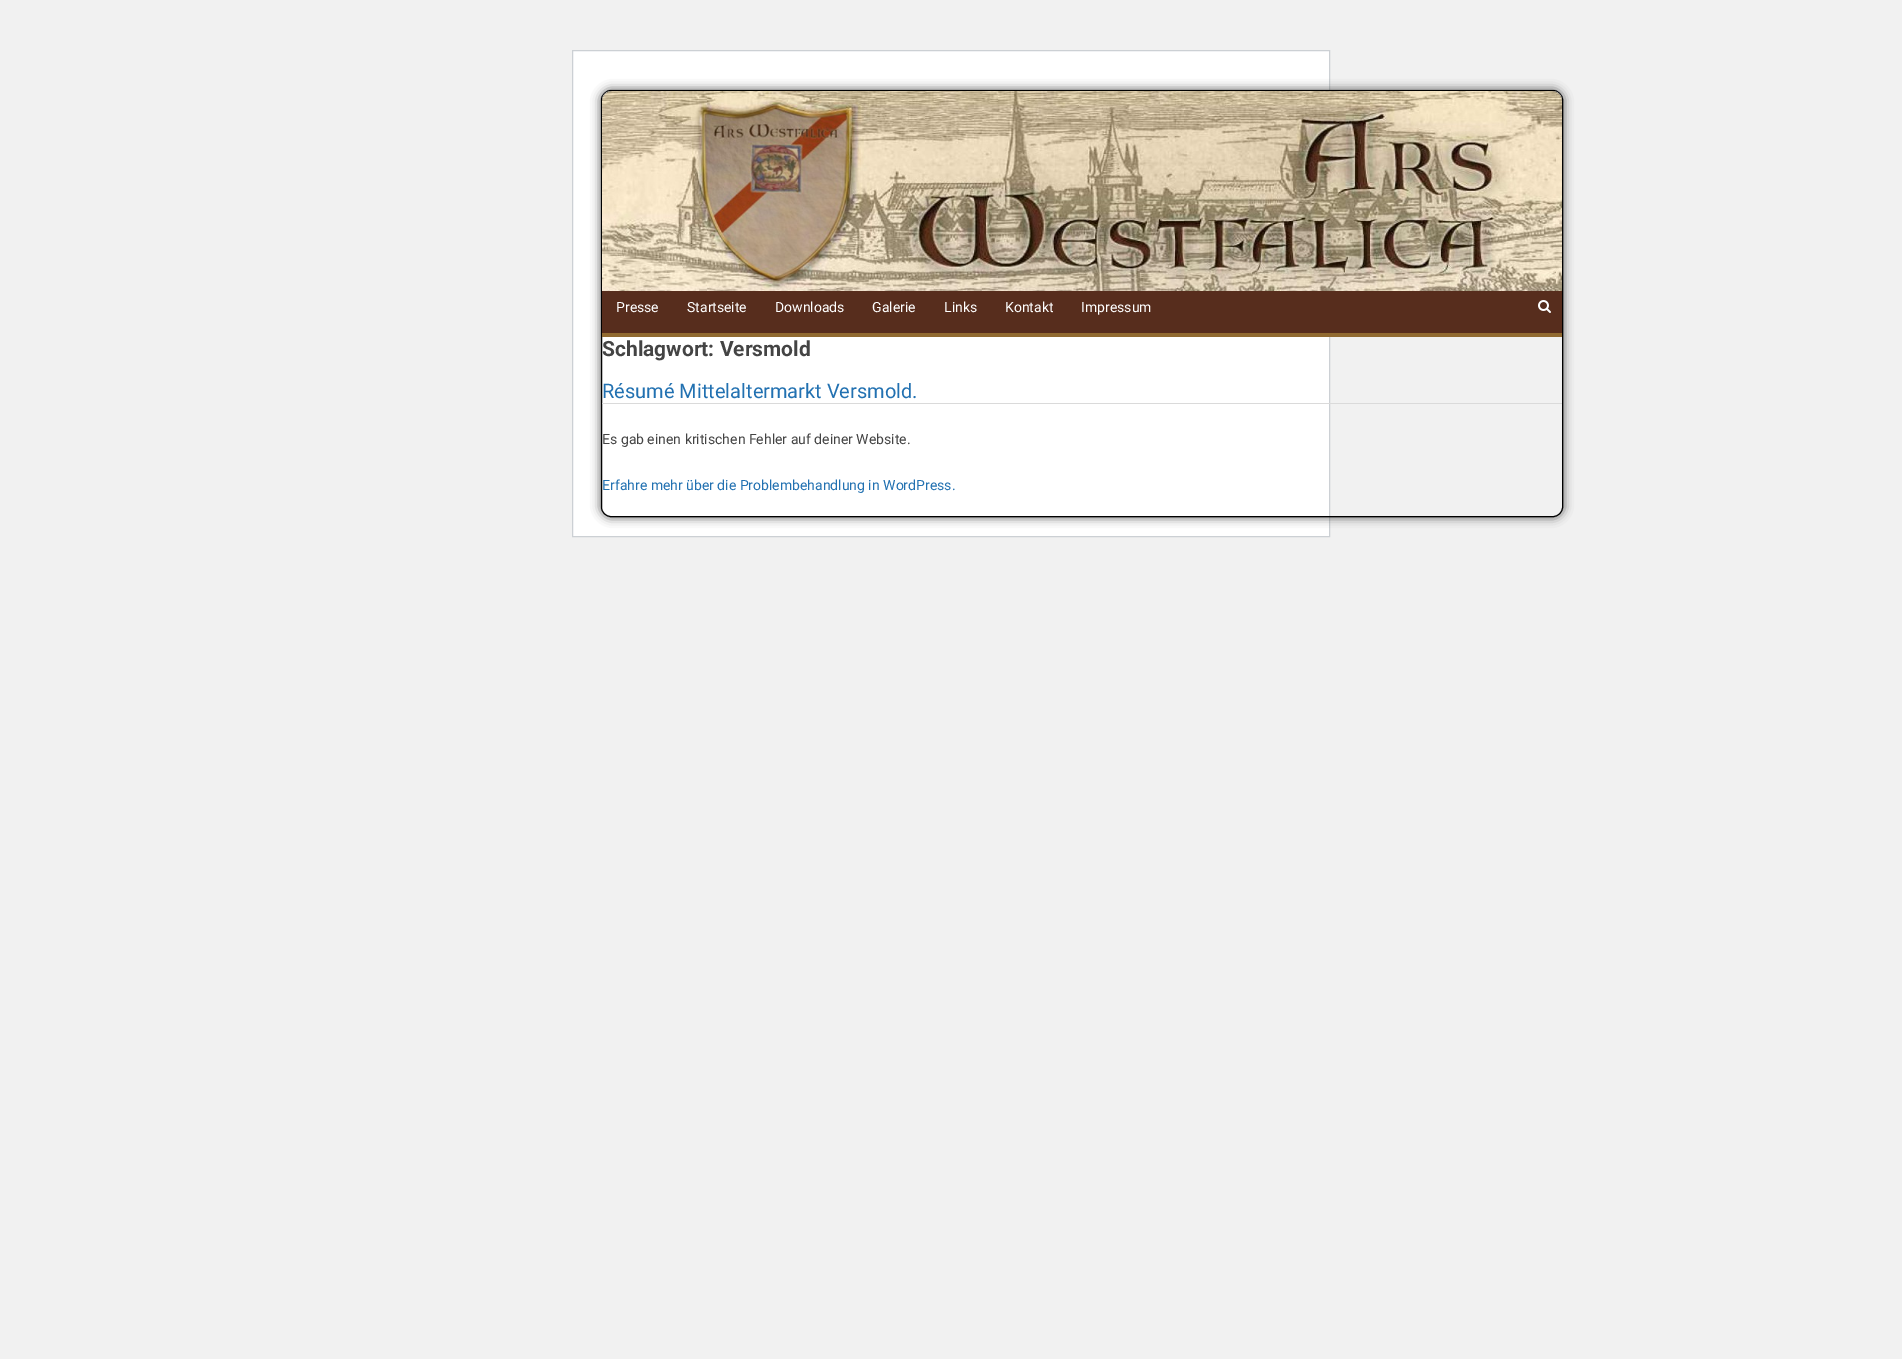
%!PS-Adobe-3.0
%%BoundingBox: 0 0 1902 1359
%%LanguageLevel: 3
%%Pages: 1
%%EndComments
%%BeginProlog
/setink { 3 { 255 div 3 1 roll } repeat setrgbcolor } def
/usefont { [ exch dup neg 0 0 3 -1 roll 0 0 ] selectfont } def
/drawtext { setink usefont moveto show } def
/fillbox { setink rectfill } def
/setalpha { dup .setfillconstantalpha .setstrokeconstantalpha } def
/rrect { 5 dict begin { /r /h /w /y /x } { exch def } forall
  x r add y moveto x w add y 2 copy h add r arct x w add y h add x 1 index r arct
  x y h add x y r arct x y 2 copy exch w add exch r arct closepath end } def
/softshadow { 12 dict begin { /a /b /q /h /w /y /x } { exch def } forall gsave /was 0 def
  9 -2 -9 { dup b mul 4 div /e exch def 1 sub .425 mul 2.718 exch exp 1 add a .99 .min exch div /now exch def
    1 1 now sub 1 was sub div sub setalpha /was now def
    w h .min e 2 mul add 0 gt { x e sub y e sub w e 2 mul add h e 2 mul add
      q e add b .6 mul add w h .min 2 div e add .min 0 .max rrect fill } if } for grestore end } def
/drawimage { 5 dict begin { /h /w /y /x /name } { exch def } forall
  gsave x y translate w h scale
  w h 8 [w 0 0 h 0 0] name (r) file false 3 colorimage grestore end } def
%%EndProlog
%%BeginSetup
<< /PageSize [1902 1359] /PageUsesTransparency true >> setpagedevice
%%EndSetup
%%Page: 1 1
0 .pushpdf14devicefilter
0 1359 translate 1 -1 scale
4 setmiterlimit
0 0 1902 1359 241 241 241 fillbox
255 255 255 setink
572.5 50.5 moveto 1329.5 50.5 lineto 1329.5 536.5 lineto 572.5 536.5 lineto closepath gsave fill grestore
204 208 212 setink
stroke
gsave
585 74 moveto 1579 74 lineto 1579 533 lineto 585 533 lineto closepath 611 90 moveto 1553 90 lineto 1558.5 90 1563 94.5 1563 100 curveto 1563 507 lineto 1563 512.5 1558.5 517 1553 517 curveto 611 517 lineto 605.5 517 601 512.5 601 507 curveto 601 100 lineto 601 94.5 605.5 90 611 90 curveto closepath eoclip newpath
68 68 68 setink
601 90 962 427 10 5 1 softshadow
grestore
0 0 0 setink
601.5 90.5 961 426 9.5 rrect stroke
(assets/img1.rgb) 602 91 960 10 drawimage
(assets/img2.rgb) 602 91 960 200 drawimage
602 291 960 42 87 45 29 fillbox
602 333 960 4 145 106 49 fillbox
(Presse) 616 312 /Roboto-Regular 14 255 255 255 drawtext
(Startseite) 687 312 /Roboto-Regular 14 255 255 255 drawtext
(Downloads) 775 312 /Roboto-Regular 14 255 255 255 drawtext
(Galerie) 872 312 /Roboto-Regular 14 255 255 255 drawtext
(Links) 944 312 /Roboto-Regular 14 255 255 255 drawtext
(Kontakt) 1005 312 /Roboto-Regular 14 255 255 255 drawtext
(Impressum) 1081 312 /Roboto-Regular 14 255 255 255 drawtext
(assets/img3.rgb) 1538 300 13 13 drawimage
(Schlagwort: Versmold) 602 356 /Roboto-Bold 21 68 68 68 drawtext
602 403 960 1 218 218 218 fillbox
(Résumé Mittelaltermarkt Versmold.) 602 398 /Roboto-Regular 20 34 113 177 drawtext
(Es gab einen kritischen Fehler auf deiner Website.) 602 444 /Roboto-Regular 14 68 68 68 drawtext
(Erfahre mehr über die Problembehandlung in WordPress.) 602 490 /Roboto-Regular 14 34 113 177 drawtext
.poppdf14devicefilter showpage
%%EOF
